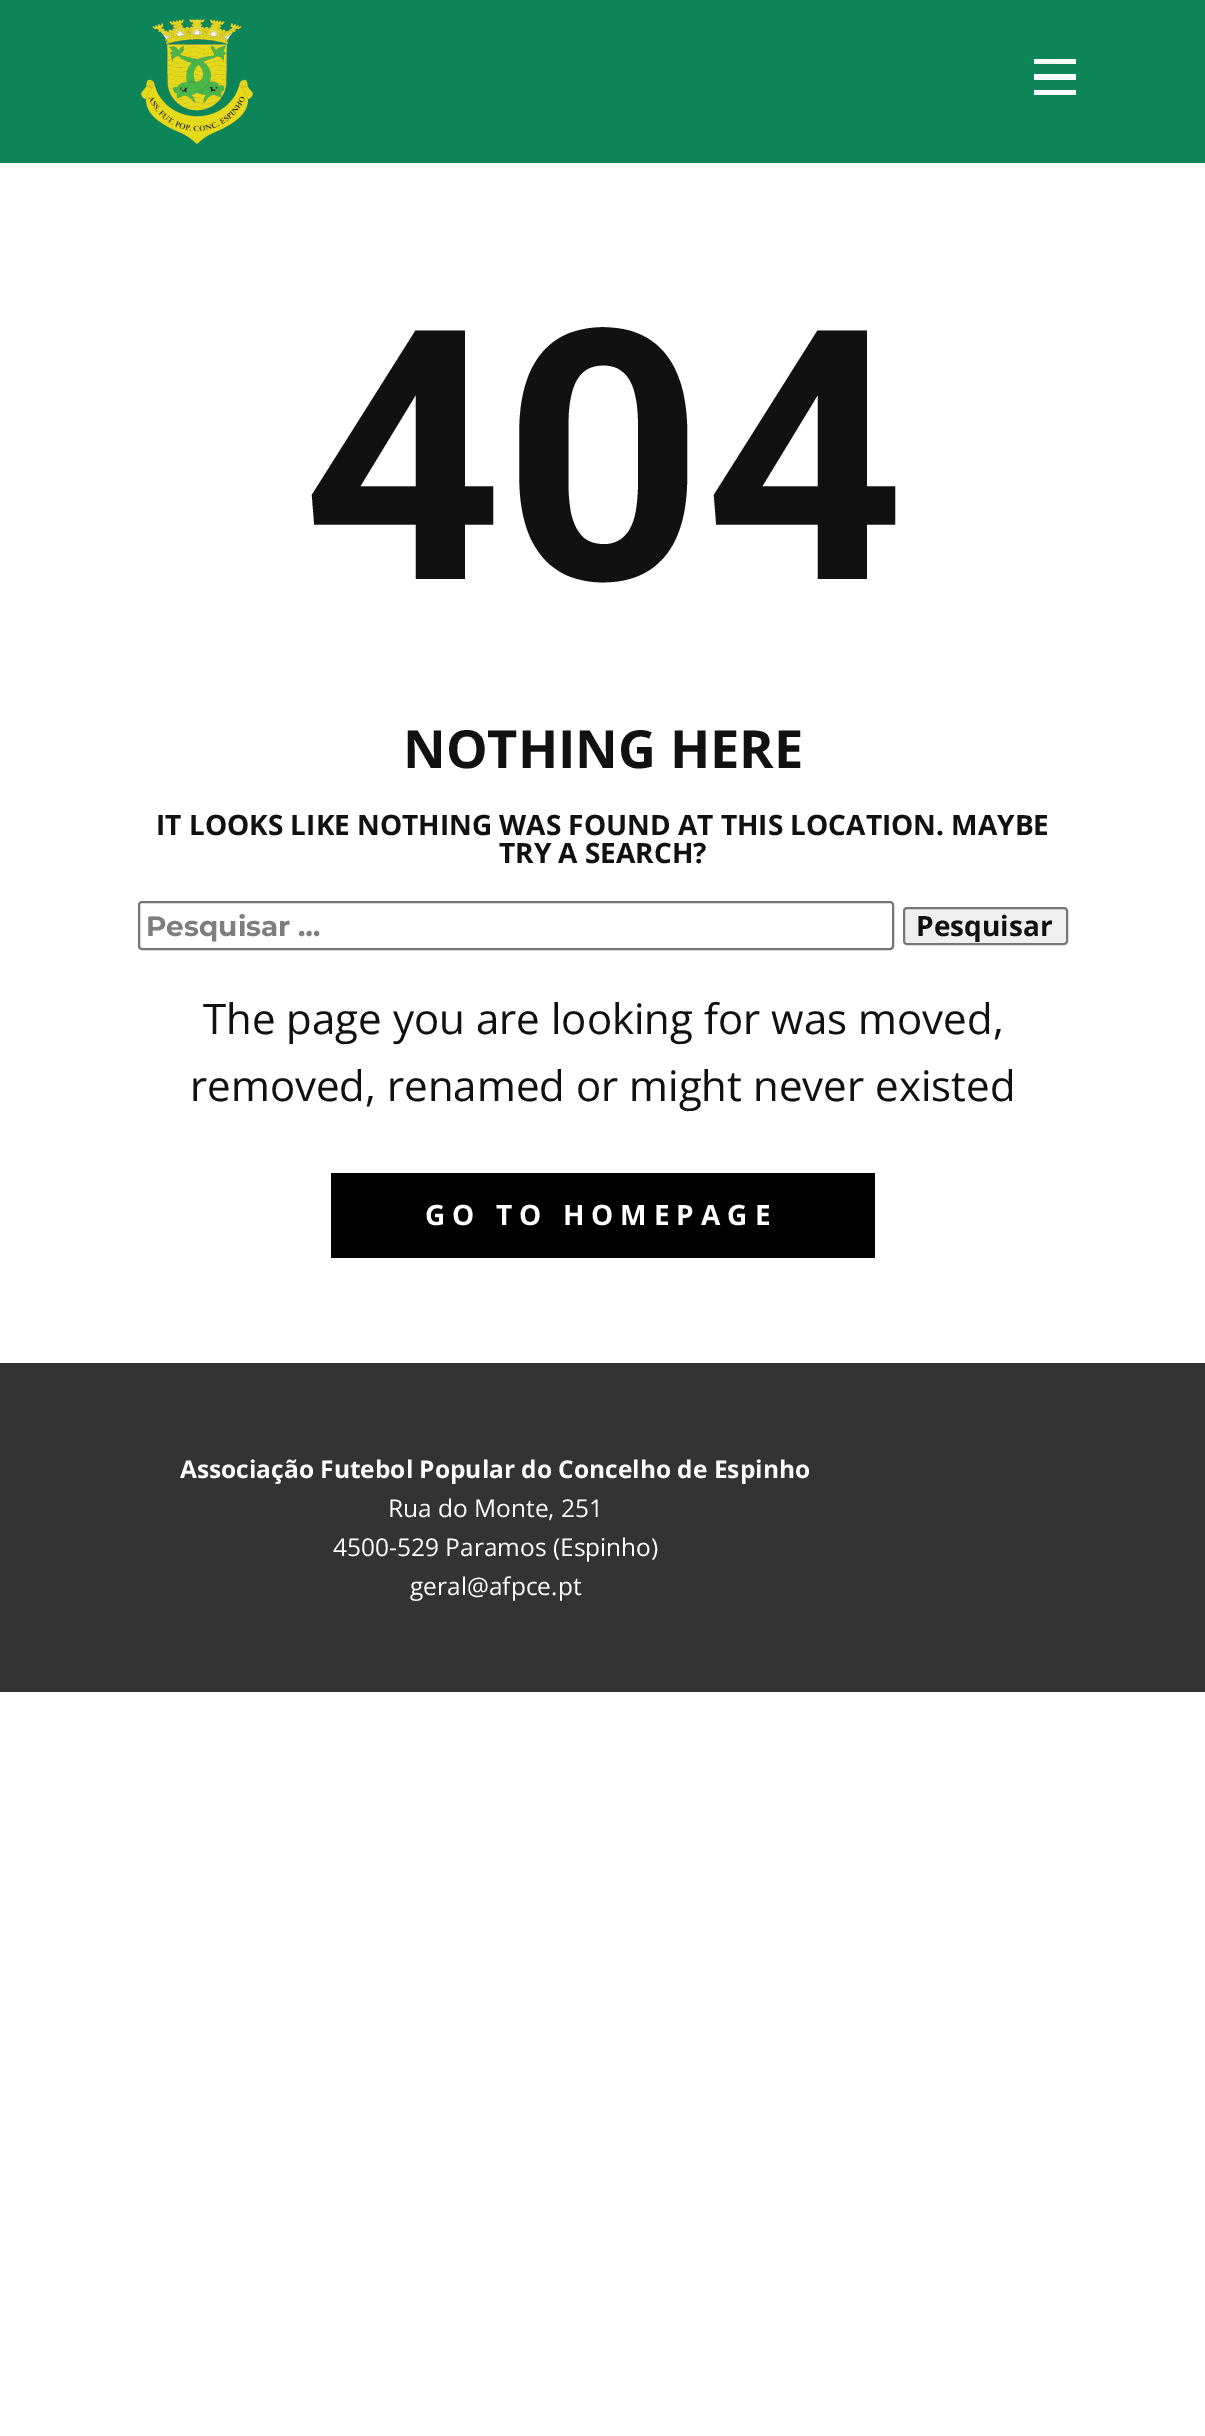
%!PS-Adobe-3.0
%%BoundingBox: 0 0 1205 2436
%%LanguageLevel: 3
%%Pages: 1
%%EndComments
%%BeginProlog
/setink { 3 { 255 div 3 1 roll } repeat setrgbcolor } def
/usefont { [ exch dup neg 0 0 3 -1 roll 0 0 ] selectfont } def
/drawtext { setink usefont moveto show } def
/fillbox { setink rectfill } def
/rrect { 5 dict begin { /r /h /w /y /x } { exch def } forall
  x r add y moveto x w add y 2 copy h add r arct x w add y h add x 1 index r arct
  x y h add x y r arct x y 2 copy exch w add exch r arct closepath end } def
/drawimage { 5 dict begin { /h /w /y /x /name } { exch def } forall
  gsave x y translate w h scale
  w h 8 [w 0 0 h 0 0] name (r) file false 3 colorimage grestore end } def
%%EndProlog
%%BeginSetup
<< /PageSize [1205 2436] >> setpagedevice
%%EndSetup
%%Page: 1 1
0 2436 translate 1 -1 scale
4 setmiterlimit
0 0 1205 2436 255 255 255 fillbox
0 0 1205 163 12 133 88 fillbox
(assets/img1.rgb) 140 19 114 126 drawimage
1034 59 42 5 255 255 255 fillbox
1034 74 42 6 255 255 255 fillbox
1034 90 42 5 255 255 255 fillbox
(404) 302 579 /Roboto-Bold 350 17 17 17 drawtext
(NOTHING HERE) 403 768 /OpenSans-Bold 52.5 17 17 17 drawtext
(IT LOOKS LIKE NOTHING WAS FOUND AT THIS LOCATION. MAYBE) 156 835 /OpenSans-Bold 28 17 17 17 drawtext
(TRY A SEARCH?) 499 863 /OpenSans-Bold 28 17 17 17 drawtext
118 118 118 setink
2 setlinewidth
139 902 754 47 3 rrect stroke
(Pesquisar …) 146 936 /Montserrat-Bold 28 126 126 126 drawtext
239 239 239 setink
904 908 163 36 3 rrect gsave fill grestore
118 118 118 setink
stroke
gsave
907 910 157 32 rectclip
(Pesquisar) 916 936 /OpenSans-Bold 28 17 17 17 drawtext
grestore
(The page you are looking for was moved,) 203 1034 /OpenSans-Regular 42 17 17 17 drawtext
(removed, renamed or might never existed) 190 1101 /OpenSans-Regular 42 17 17 17 drawtext
331 1173 544 85 0 0 0 fillbox
/OpenSans-Bold 28 usefont
255 255 255 setink
425 1225 moveto 7 0 (GO TO HOMEPAGE) ashow
0 1363 1205 329 51 51 51 fillbox
(Associação Futebol Popular do Concelho de Espinho) 180 1478 /OpenSans-Bold 24.5 255 255 255 drawtext
(Rua do Monte, 251) 388 1517 /OpenSans-Regular 24.5 255 255 255 drawtext
(4500-529 Paramos \(Espinho\)) 333 1556 /OpenSans-Regular 24.5 255 255 255 drawtext
(geral@afpce.pt) 410 1595 /OpenSans-Regular 24.5 255 255 255 drawtext
showpage
%%EOF
